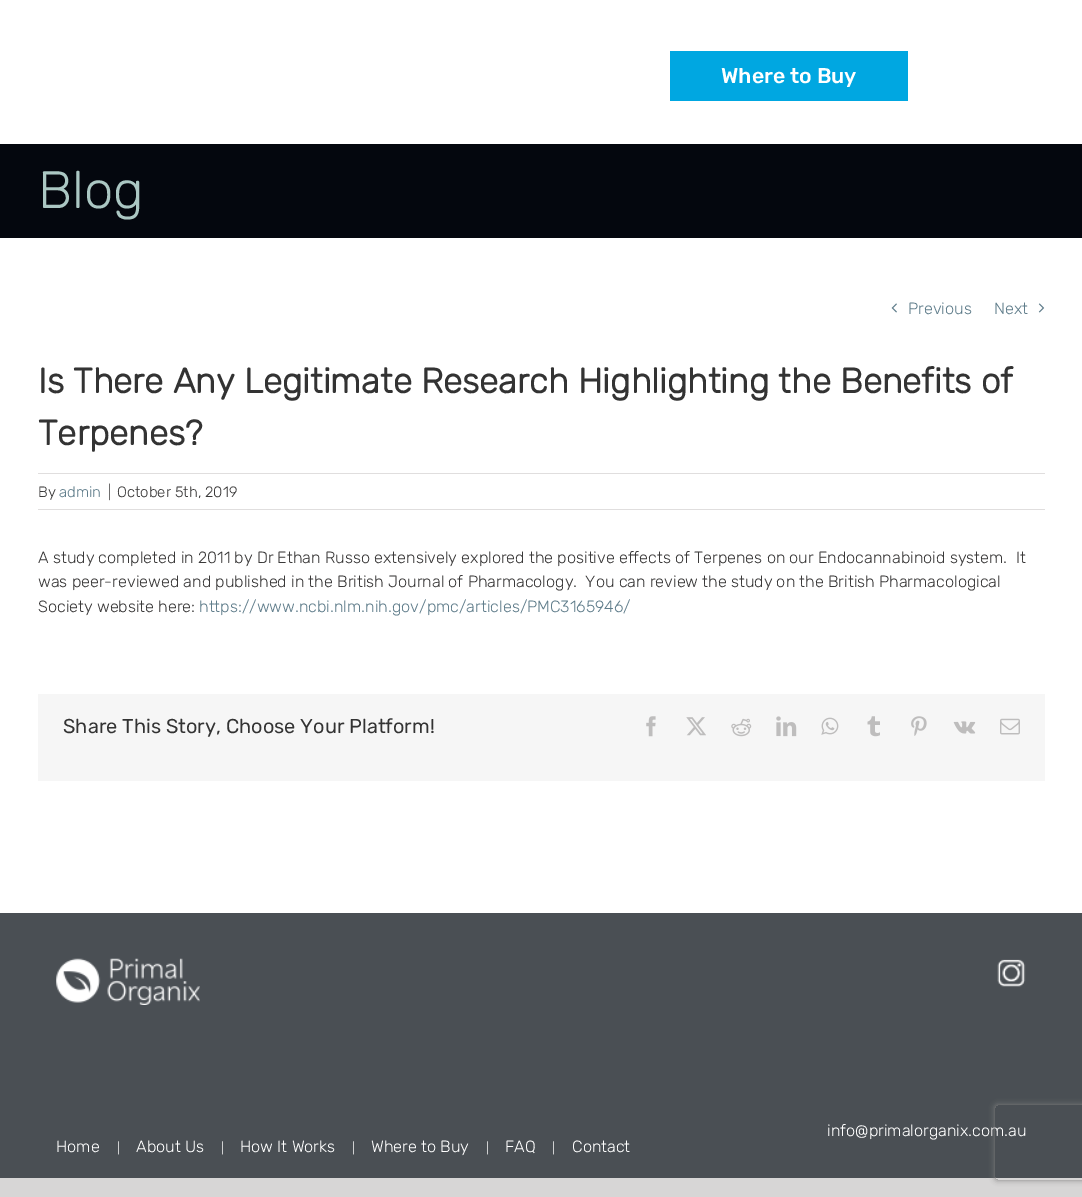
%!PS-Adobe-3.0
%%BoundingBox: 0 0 1082 1197
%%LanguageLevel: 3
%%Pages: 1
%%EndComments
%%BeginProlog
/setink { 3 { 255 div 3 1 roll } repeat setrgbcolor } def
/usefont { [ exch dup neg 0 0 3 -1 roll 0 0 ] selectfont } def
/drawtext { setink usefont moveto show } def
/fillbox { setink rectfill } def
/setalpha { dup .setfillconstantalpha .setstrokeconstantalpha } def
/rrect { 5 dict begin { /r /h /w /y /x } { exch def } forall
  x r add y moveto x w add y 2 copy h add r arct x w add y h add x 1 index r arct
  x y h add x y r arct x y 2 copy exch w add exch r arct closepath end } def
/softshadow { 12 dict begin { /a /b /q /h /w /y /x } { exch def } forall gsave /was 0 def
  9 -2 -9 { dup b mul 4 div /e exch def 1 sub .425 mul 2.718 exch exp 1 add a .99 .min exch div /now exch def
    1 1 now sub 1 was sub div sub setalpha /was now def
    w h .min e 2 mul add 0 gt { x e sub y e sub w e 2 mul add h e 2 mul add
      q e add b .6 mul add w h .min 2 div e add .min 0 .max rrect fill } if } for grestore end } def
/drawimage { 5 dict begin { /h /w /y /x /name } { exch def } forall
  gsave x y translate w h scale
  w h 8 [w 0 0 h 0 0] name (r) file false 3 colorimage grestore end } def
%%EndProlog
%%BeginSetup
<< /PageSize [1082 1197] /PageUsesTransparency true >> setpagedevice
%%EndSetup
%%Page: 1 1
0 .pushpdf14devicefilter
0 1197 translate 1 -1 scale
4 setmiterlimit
0 0 1082 1197 215 214 214 fillbox
0 0 1082 913 255 255 255 fillbox
670 51 238 50 0 167 225 fillbox
(Where to Buy) 721 83 /Rubik-Medium 21.25 255 255 255 drawtext
0 144 1082 94 4 7 14 fillbox
(Blog) 38 208 /Rubik-Light 52.5 171 199 195 drawtext
(assets/img1.rgb) 891 303 6 10 drawimage
(Previous) 908 314 /Rubik-Light 16.25 96 125 139 drawtext
(Next) 994 314 /Rubik-Light 16.25 96 125 139 drawtext
(assets/img2.rgb) 1038 303 7 10 drawimage
(Is There Any Legitimate Research Highlighting the Benefits of) 38 393 /Rubik-Bold 35 51 51 51 drawtext
(Terpenes?) 38 445 /Rubik-Bold 35 51 51 51 drawtext
38 473 1007 1 224 222 222 fillbox
38 509 1007 1 224 222 222 fillbox
(By) 38 497 /Rubik-Light 15 58 57 57 drawtext
(admin) 59 497 /Rubik-Light 15 96 125 139 drawtext
(|) 108 497 /Rubik-Light 15 58 57 57 drawtext
(October 5th, 2019) 117 497 /Rubik-Light 15 58 57 57 drawtext
(A study completed in 2011 by Dr Ethan Russo extensively explored the positive effects of Terpenes on our Endocannabinoid system.  It) 38 563 /Rubik-Light 16.25 58 57 57 drawtext
(was peer-reviewed and published in the British Journal of Pharmacology.  You can review the study on the British Pharmacological) 38 587 /Rubik-Light 16.25 58 57 57 drawtext
(Society website here:) 38 612 /Rubik-Light 16.25 58 57 57 drawtext
(https://www.ncbi.nlm.nih.gov/pmc/articles/PMC3165946/) 199 612 /Rubik-Light 16.25 96 125 139 drawtext
38 694 1007 87 246 246 246 fillbox
(Share This Story, Choose Your Platform!) 63 733 /Rubik-Regular 20 51 51 51 drawtext
(assets/img3.rgb) 646 716 10 21 drawimage
(assets/img4.rgb) 686 717 20 19 drawimage
(assets/img5.rgb) 731 718 21 19 drawimage
(assets/img6.rgb) 776 716 21 21 drawimage
(assets/img7.rgb) 821 717 18 18 drawimage
(assets/img8.rgb) 867 716 13 21 drawimage
(assets/img9.rgb) 911 716 16 20 drawimage
(assets/img10.rgb) 953 721 23 13 drawimage
(assets/img11.rgb) 1000 718 20 17 drawimage
0 913 1082 265 74 79 84 fillbox
(assets/img12.rgb) 56 958 144 47 drawimage
(assets/img13.rgb) 997 959 29 28 drawimage
(info@primalorganix.com.au) 827 1136 /Rubik-Light 16.25 255 255 255 drawtext
(Home) 56 1152 /Rubik-Light 16.25 255 255 255 drawtext
(|) 117 1152 /Rubik-Light 12 255 255 255 drawtext
(About Us) 136 1152 /Rubik-Light 16.25 255 255 255 drawtext
(|) 221 1152 /Rubik-Light 12 255 255 255 drawtext
(How It Works) 240 1152 /Rubik-Light 16.25 255 255 255 drawtext
(|) 352 1152 /Rubik-Light 12 255 255 255 drawtext
(Where to Buy) 371 1152 /Rubik-Light 16.25 255 255 255 drawtext
(|) 486 1152 /Rubik-Light 12 255 255 255 drawtext
(FAQ) 505 1152 /Rubik-Light 16.25 255 255 255 drawtext
(|) 552 1152 /Rubik-Light 12 255 255 255 drawtext
(Contact) 572 1152 /Rubik-Light 16.25 255 255 255 drawtext
gsave
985 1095 moveto 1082 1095 lineto 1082 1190 lineto 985 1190 lineto closepath 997.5 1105 moveto 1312.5 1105 lineto 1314 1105 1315 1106 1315 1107.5 curveto 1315 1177.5 lineto 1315 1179 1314 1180 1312.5 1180 curveto 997.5 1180 lineto 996 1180 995 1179 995 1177.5 curveto 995 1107.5 lineto 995 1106 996 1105 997.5 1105 curveto closepath eoclip newpath
128 128 128 setink
995 1105 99 75 2.5 3 1 softshadow
grestore
.poppdf14devicefilter showpage
%%EOF
